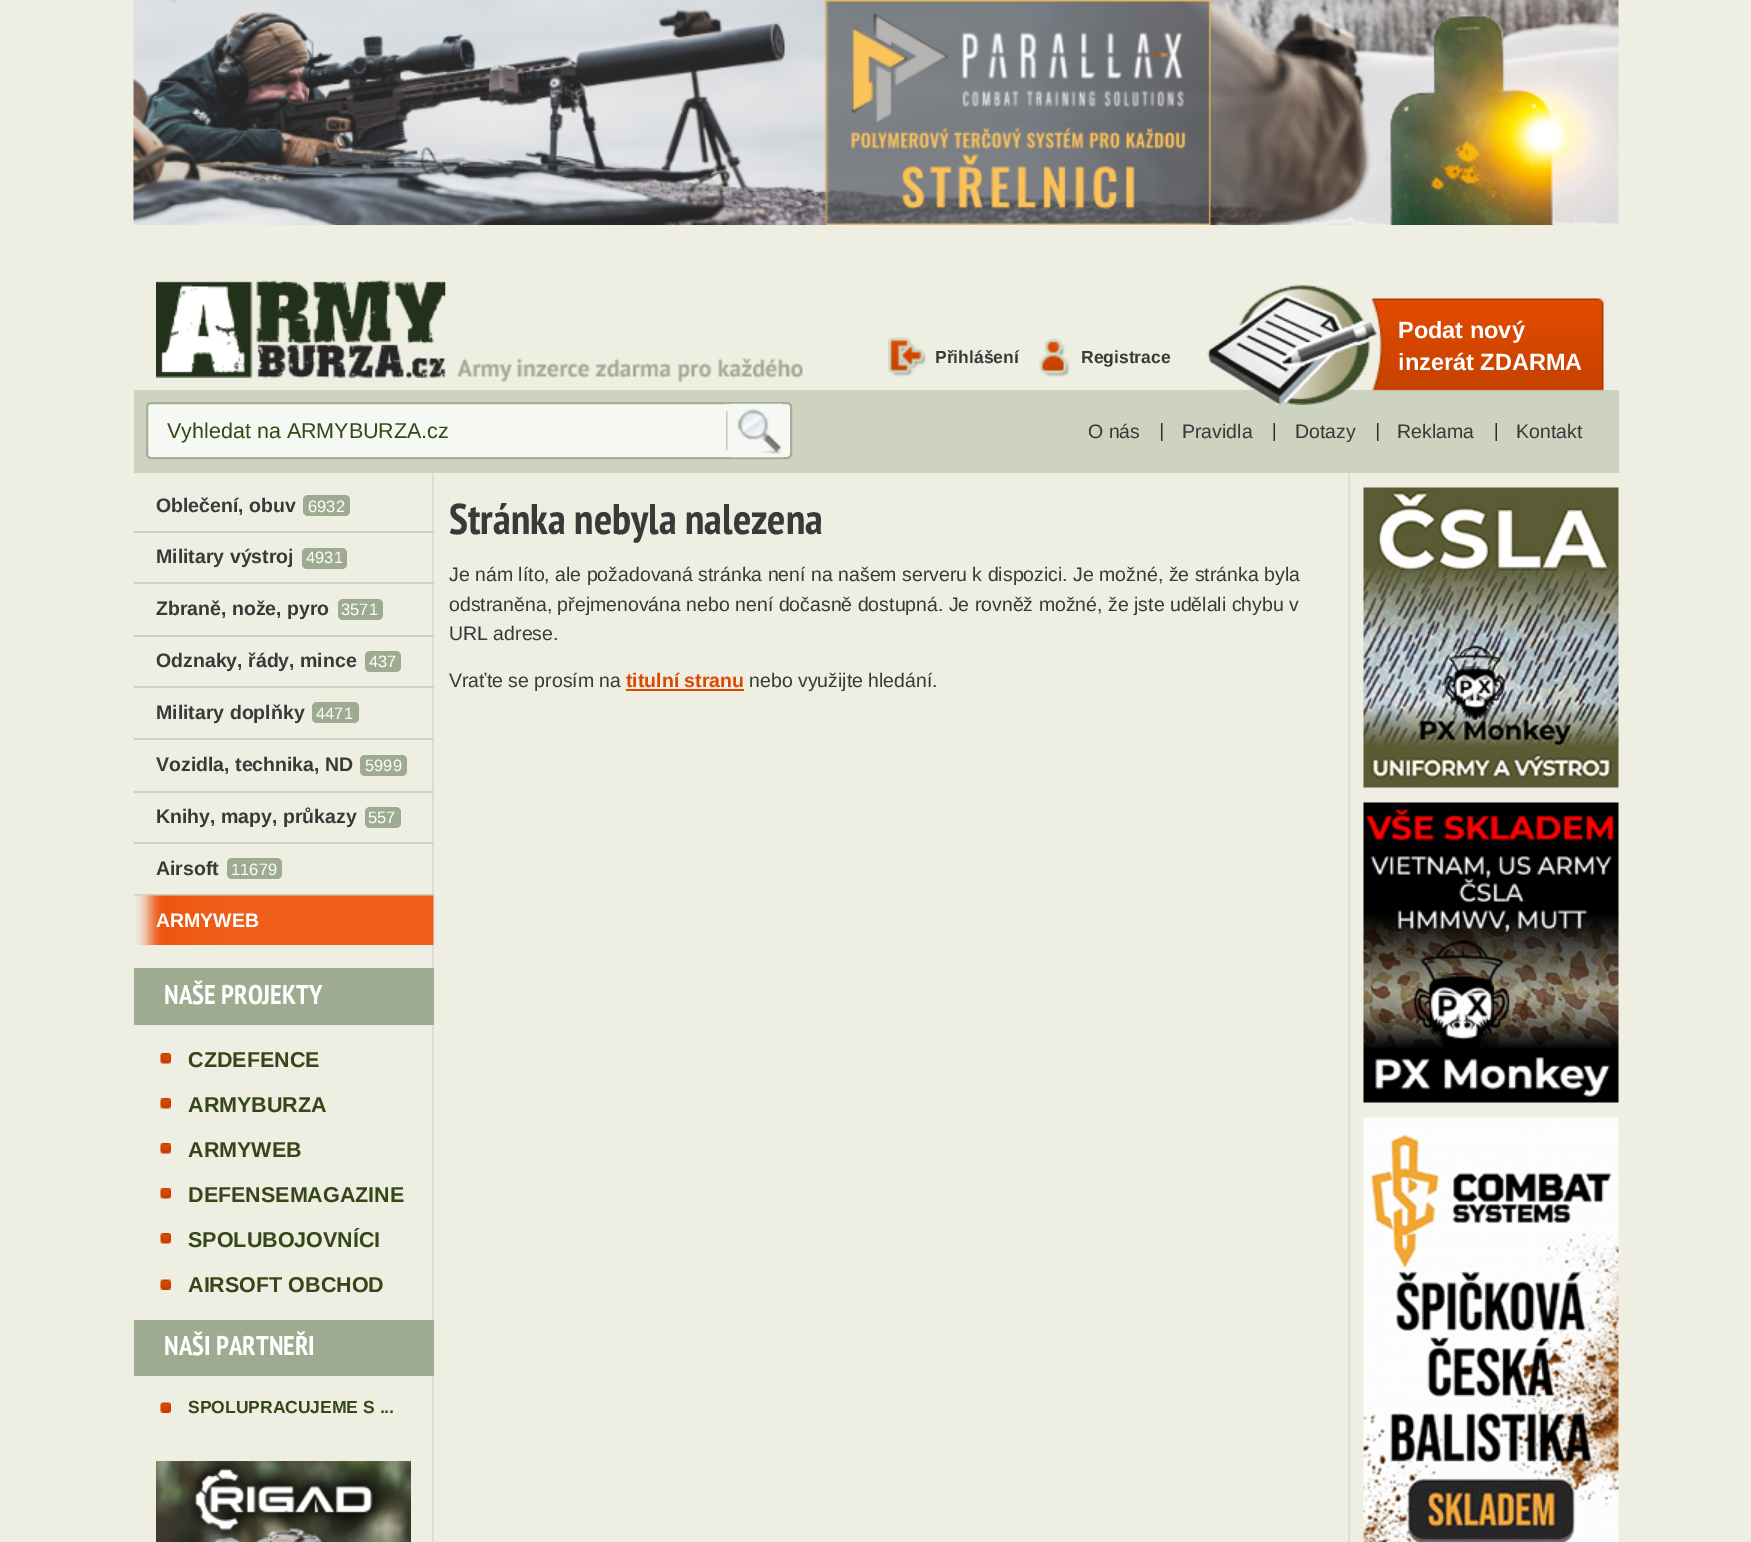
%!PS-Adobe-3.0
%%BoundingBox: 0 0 1751 1542
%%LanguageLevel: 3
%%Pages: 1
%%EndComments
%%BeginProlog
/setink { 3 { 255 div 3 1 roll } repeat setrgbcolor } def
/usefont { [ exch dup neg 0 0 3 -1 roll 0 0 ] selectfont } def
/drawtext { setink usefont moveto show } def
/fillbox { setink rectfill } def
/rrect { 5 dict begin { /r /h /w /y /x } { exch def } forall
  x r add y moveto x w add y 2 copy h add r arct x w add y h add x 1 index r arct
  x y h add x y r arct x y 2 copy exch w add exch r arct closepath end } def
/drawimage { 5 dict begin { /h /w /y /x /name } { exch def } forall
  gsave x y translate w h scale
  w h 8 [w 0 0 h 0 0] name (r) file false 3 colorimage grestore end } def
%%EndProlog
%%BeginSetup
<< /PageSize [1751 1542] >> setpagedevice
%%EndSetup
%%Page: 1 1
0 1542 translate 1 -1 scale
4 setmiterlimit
0 0 1751 1542 239 238 227 fillbox
(assets/img1.rgb) 133 0 1486 225 drawimage
(assets/img2.rgb) 457 358 346 25 drawimage
(assets/img3.rgb) 887 337 39 40 drawimage
(Přihlášení) 935 363 /LiberationSans-Bold 17.5 57 57 57 drawtext
(assets/img4.rgb) 1039 338 31 39 drawimage
(Registrace) 1081 363 /LiberationSans-Bold 17.5 57 57 57 drawtext
134 390 1485 83 206 210 193 fillbox
(assets/img5.rgb) 1207 285 397 120 drawimage
(Podat nový) 1398 338 /LiberationSans-Bold 23.5 255 255 255 drawtext
(inzerát ZDARMA) 1398 370 /LiberationSans-Bold 23.5 255 255 255 drawtext
246 249 243 setink
147 403 644 55 4 rrect gsave fill grestore
166 174 149 setink
2 setlinewidth
stroke
(Vyhledat na ARMYBURZA.cz) 167 438 /LiberationSans-Regular 21.5 53 71 23 drawtext
(assets/img6.rgb) 726 403 57 55 drawimage
(assets/img7.rgb) 156 280 290 98 drawimage
(O nás) 1088 438 /LiberationSans-Regular 19.5 57 57 57 drawtext
(assets/img8.rgb) 1161 423 2 18 drawimage
(Pravidla) 1182 438 /LiberationSans-Regular 19.5 57 57 57 drawtext
(assets/img9.rgb) 1273 423 2 18 drawimage
(Dotazy) 1295 438 /LiberationSans-Regular 19.5 57 57 57 drawtext
(assets/img8.rgb) 1377 423 2 18 drawimage
(Reklama) 1397 438 /LiberationSans-Regular 19.5 57 57 57 drawtext
(assets/img9.rgb) 1495 423 2 18 drawimage
(Kontakt) 1516 438 /LiberationSans-Regular 19.5 57 57 57 drawtext
(assets/img10.rgb) 431 472 920 1070 drawimage
134 531 300 2 206 208 195 fillbox
(Oblečení, obuv) 156 512 /LiberationSans-Bold 19.5 57 57 57 drawtext
159 171 144 setink
303 495 47 21 5 rrect fill
(6932) 308 512 /LiberationSans-Regular 16.5 255 255 255 drawtext
134 582 300 2 206 208 195 fillbox
(Military výstroj) 156 563 /LiberationSans-Bold 19.5 57 57 57 drawtext
159 171 144 setink
302 548 45 21 5 rrect fill
(4931) 306 563 /LiberationSans-Regular 16.5 255 255 255 drawtext
134 635 300 2 206 208 195 fillbox
(Zbraně, nože, pyro) 156 615 /LiberationSans-Bold 19.5 57 57 57 drawtext
159 171 144 setink
338 599 45 21 5 rrect fill
(3571) 341 615 /LiberationSans-Regular 16.5 255 255 255 drawtext
134 686 300 2 206 208 195 fillbox
(Odznaky, řády, mince) 156 667 /LiberationSans-Bold 19.5 57 57 57 drawtext
159 171 144 setink
365 651 36 21 5 rrect fill
(437) 369 667 /LiberationSans-Regular 16.5 255 255 255 drawtext
134 738 300 2 206 208 195 fillbox
(Military doplňky) 156 719 /LiberationSans-Bold 19.5 57 57 57 drawtext
159 171 144 setink
312 702 47 21 5 rrect fill
(4471) 316 719 /LiberationSans-Regular 16.5 255 255 255 drawtext
134 791 300 2 206 208 195 fillbox
(Vozidla, technika, ND) 156 771 /LiberationSans-Bold 19.5 57 57 57 drawtext
159 171 144 setink
360 755 47 21 5 rrect fill
(5999) 365 771 /LiberationSans-Regular 16.5 255 255 255 drawtext
134 842 300 2 206 208 195 fillbox
(Knihy, mapy, průkazy) 156 823 /LiberationSans-Bold 19.5 57 57 57 drawtext
159 171 144 setink
365 807 36 21 5 rrect fill
(557) 368 823 /LiberationSans-Regular 16.5 255 255 255 drawtext
134 894 300 2 206 208 195 fillbox
(Airsoft) 156 875 /LiberationSans-Bold 19.5 57 57 57 drawtext
159 171 144 setink
227 858 55 21 5 rrect fill
(11679) 231 875 /LiberationSans-Regular 16.5 255 255 255 drawtext
(assets/img11.rgb) 134 895 300 50 drawimage
(ARMYWEB) 156 927 /LiberationSans-Bold 19.5 255 255 255 drawtext
134 968 300 57 159 171 144 fillbox
(NAŠE PROJEKTY) 164 1004 /PTSansNarrow-Bold 27 255 255 255 drawtext
(assets/img12.rgb) 160 1053 11 11 drawimage
(CZDEFENCE) 188 1067 /LiberationSans-Bold 21.5 53 71 23 drawtext
(assets/img12.rgb) 160 1098 11 11 drawimage
(ARMYBURZA) 188 1112 /LiberationSans-Bold 21.5 53 71 23 drawtext
(assets/img12.rgb) 160 1143 11 11 drawimage
(ARMYWEB) 188 1157 /LiberationSans-Bold 21.5 53 71 23 drawtext
(assets/img12.rgb) 160 1188 11 11 drawimage
(DEFENSEMAGAZINE) 188 1202 /LiberationSans-Bold 21.5 53 71 23 drawtext
(assets/img12.rgb) 160 1233 11 11 drawimage
(SPOLUBOJOVNÍCI) 188 1247 /LiberationSans-Bold 21.5 53 71 23 drawtext
(assets/img13.rgb) 160 1279 11 11 drawimage
(AIRSOFT OBCHOD) 188 1292 /LiberationSans-Bold 21.5 53 71 23 drawtext
134 1320 300 56 159 171 144 fillbox
(NAŠI PARTNEŘI) 164 1355 /PTSansNarrow-Bold 27 255 255 255 drawtext
(assets/img13.rgb) 160 1402 11 11 drawimage
(SPOLUPRACUJEME S ...) 188 1413 /LiberationSans-Bold 17.5 53 71 23 drawtext
(assets/img14.rgb) 156 1461 255 81 drawimage
(Stránka nebyla nalezena) 449 534 /PTSansNarrow-Bold 43 57 57 57 drawtext
(Je nám líto, ale požadovaná stránka není na našem serveru k dispozici. Je možné, že stránka byla) 449 581 /LiberationSans-Regular 19.5 57 57 57 drawtext
(odstraněna, přejmenována nebo není dočasně dostupná. Je rovněž možné, že jste udělali chybu v) 449 611 /LiberationSans-Regular 19.5 57 57 57 drawtext
(URL adrese.) 449 640 /LiberationSans-Regular 19.5 57 57 57 drawtext
(Vraťte se prosím na) 449 687 /LiberationSans-Regular 19.5 57 57 57 drawtext
(titulní stranu) 626 687 /LiberationSans-Bold 19.5 219 72 0 drawtext
626 689 118 2 219 72 0 fillbox
(nebo využijte hledání.) 749 687 /LiberationSans-Regular 19.5 57 57 57 drawtext
(assets/img15.rgb) 1363 487 256 301 drawimage
(assets/img16.rgb) 1363 802 256 301 drawimage
(assets/img17.rgb) 1363 1117 256 425 drawimage
showpage
%%EOF
